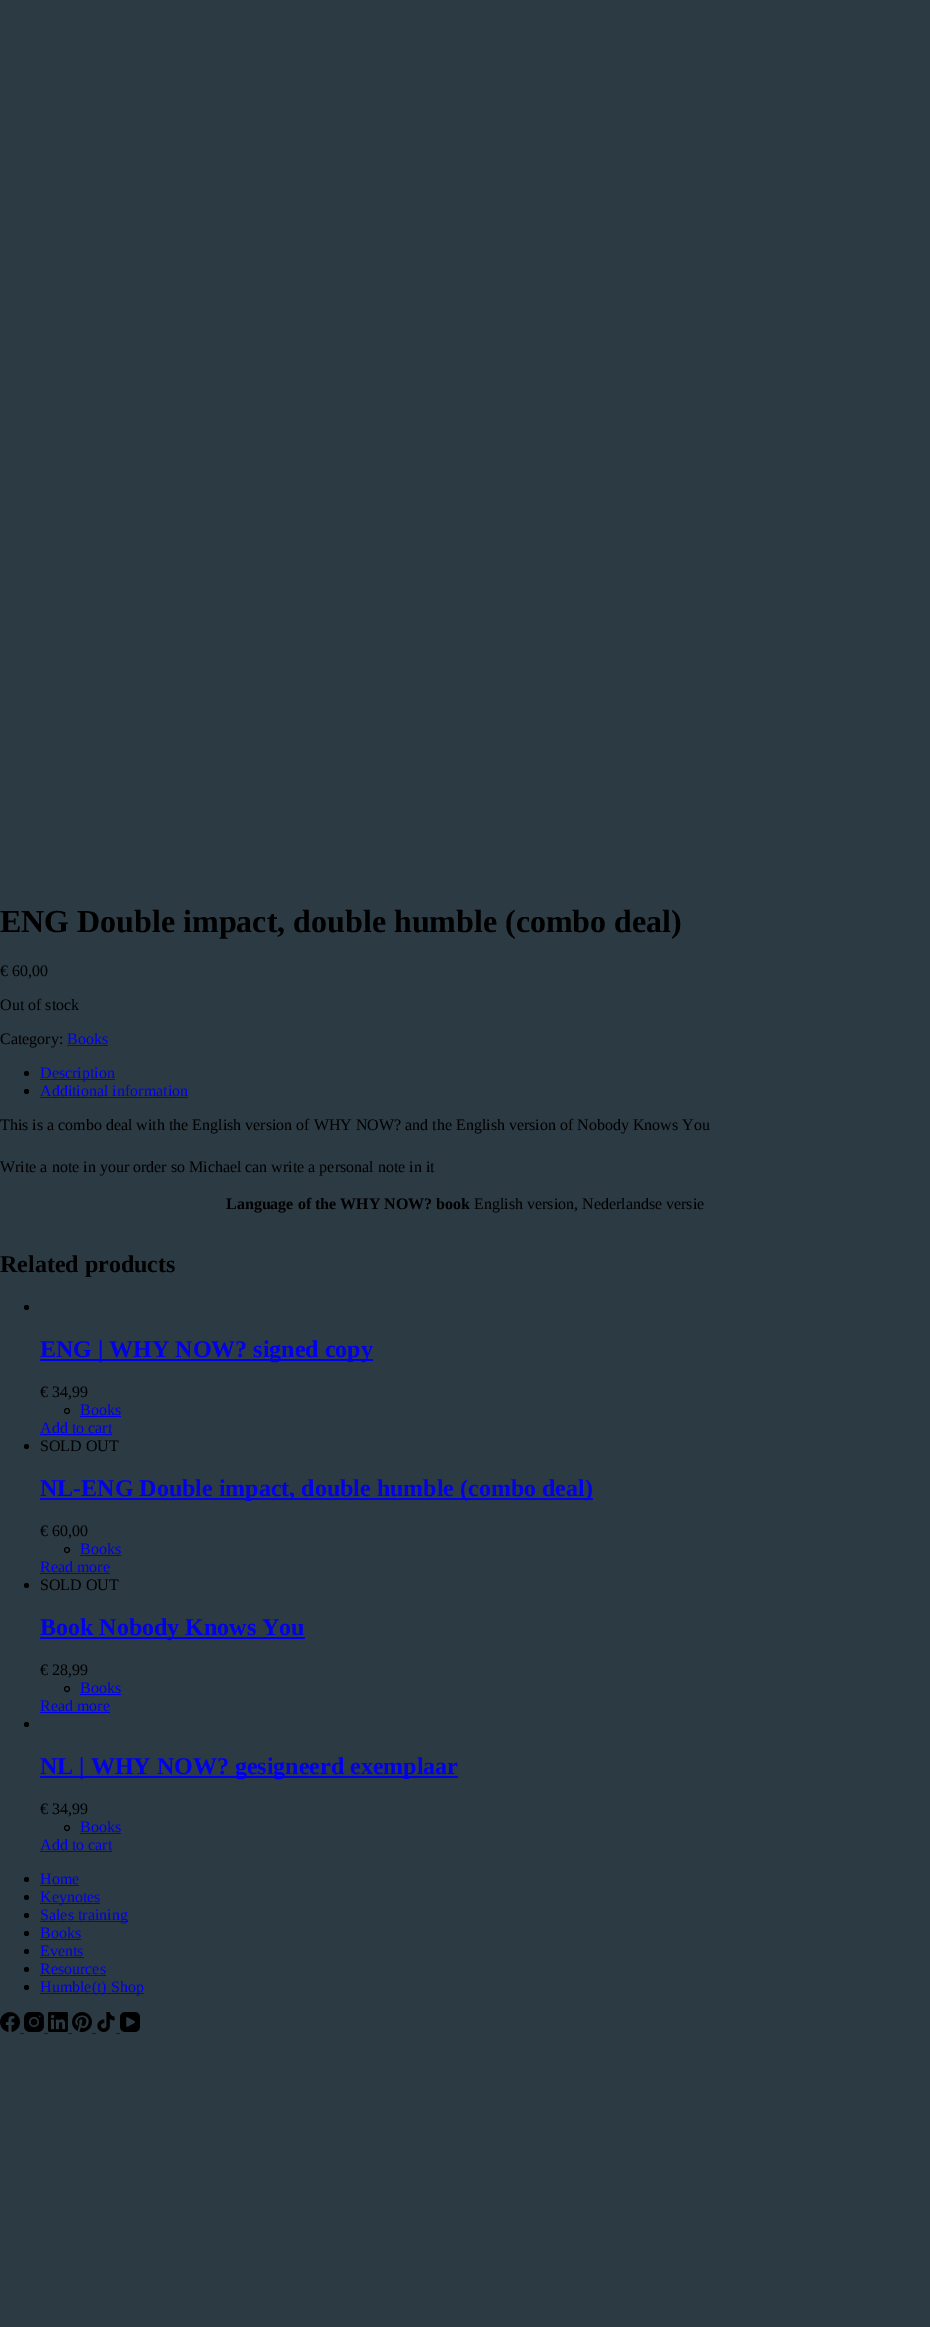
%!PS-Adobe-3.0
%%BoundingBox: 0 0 930 2327
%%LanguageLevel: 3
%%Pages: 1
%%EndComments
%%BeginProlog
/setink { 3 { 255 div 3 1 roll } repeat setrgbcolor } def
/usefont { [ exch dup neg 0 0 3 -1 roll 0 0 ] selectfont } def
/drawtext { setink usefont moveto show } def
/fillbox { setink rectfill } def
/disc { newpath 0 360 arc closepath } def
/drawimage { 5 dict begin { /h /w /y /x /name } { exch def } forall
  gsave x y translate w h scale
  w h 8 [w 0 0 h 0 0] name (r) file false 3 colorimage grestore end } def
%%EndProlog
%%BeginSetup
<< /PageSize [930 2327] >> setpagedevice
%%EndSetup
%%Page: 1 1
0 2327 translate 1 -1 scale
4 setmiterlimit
0 0 930 2327 43 58 67 fillbox
(ENG Double impact, double humble \(combo deal\)) 0 932 /LiberationSerif-Bold 32 0 0 0 drawtext
(€ 60,00) 0 976 /LiberationSerif-Regular 16 0 0 0 drawtext
(Out of stock) 0 1010 /LiberationSerif-Regular 16 0 0 0 drawtext
(Category:) 0 1044 /LiberationSerif-Regular 16 0 0 0 drawtext
(Books) 67 1044 /LiberationSerif-Regular 16 0 0 238 drawtext
67 1045 41 1 0 0 238 fillbox
0 0 0 setink
26.5 1073.5 2.5 disc fill
40 1079 75 1 0 0 238 fillbox
(Description) 40 1078 /LiberationSerif-Regular 16 0 0 238 drawtext
0 0 0 setink
26.5 1091.5 2.5 disc fill
(Additional information) 40 1096 /LiberationSerif-Regular 16 0 0 238 drawtext
40 1097 148 1 0 0 238 fillbox
(This is a combo deal with the English version of WHY NOW? and the English version of Nobody Knows You) 0 1130 /LiberationSerif-Regular 16 0 0 0 drawtext
(Write a note in your order so Michael can write a personal note in it) 0 1172 /LiberationSerif-Regular 16 0 0 0 drawtext
(Language of the WHY NOW? book) 226 1209 /LiberationSerif-Bold 16 0 0 0 drawtext
(English version, Nederlandse versie) 474 1209 /LiberationSerif-Regular 16 0 0 0 drawtext
(Related products) 0 1272 /LiberationSerif-Bold 24 0 0 0 drawtext
26.5 1307.5 2.5 disc fill
40 1359 333 2 0 0 238 fillbox
(ENG | WHY NOW? signed copy) 40 1357 /LiberationSerif-Bold 24 0 0 238 drawtext
(€ 34,99) 40 1397 /LiberationSerif-Regular 16 0 0 0 drawtext
67 1411 2.5 disc stroke
(Books) 80 1415 /LiberationSerif-Regular 16 0 0 238 drawtext
80 1416 41 1 0 0 238 fillbox
(Add to cart) 40 1433 /LiberationSerif-Regular 16 0 0 238 drawtext
40 1434 72 1 0 0 238 fillbox
0 0 0 setink
26.5 1446.5 2.5 disc fill
(SOLD OUT) 40 1451 /LiberationSerif-Regular 16 0 0 0 drawtext
40 1498 553 2 0 0 238 fillbox
(NL-ENG Double impact, double humble \(combo deal\)) 40 1496 /LiberationSerif-Bold 24 0 0 238 drawtext
(€ 60,00) 40 1536 /LiberationSerif-Regular 16 0 0 0 drawtext
67 1550 2.5 disc stroke
(Books) 80 1554 /LiberationSerif-Regular 16 0 0 238 drawtext
80 1555 41 1 0 0 238 fillbox
(Read more) 40 1572 /LiberationSerif-Regular 16 0 0 238 drawtext
40 1573 70 1 0 0 238 fillbox
0 0 0 setink
26.5 1585.5 2.5 disc fill
(SOLD OUT) 40 1590 /LiberationSerif-Regular 16 0 0 0 drawtext
40 1637 265 2 0 0 238 fillbox
(Book Nobody Knows You) 40 1635 /LiberationSerif-Bold 24 0 0 238 drawtext
(€ 28,99) 40 1675 /LiberationSerif-Regular 16 0 0 0 drawtext
67 1689 2.5 disc stroke
(Books) 80 1693 /LiberationSerif-Regular 16 0 0 238 drawtext
80 1694 41 1 0 0 238 fillbox
(Read more) 40 1711 /LiberationSerif-Regular 16 0 0 238 drawtext
40 1712 70 1 0 0 238 fillbox
0 0 0 setink
26.5 1724.5 2.5 disc fill
40 1776 418 2 0 0 238 fillbox
(NL | WHY NOW? gesigneerd exemplaar) 40 1774 /LiberationSerif-Bold 24 0 0 238 drawtext
(€ 34,99) 40 1814 /LiberationSerif-Regular 16 0 0 0 drawtext
67 1828 2.5 disc stroke
(Books) 80 1832 /LiberationSerif-Regular 16 0 0 238 drawtext
80 1833 41 1 0 0 238 fillbox
(Add to cart) 40 1850 /LiberationSerif-Regular 16 0 0 238 drawtext
40 1851 72 1 0 0 238 fillbox
0 0 0 setink
26.5 1879.5 2.5 disc fill
(Home) 40 1884 /LiberationSerif-Regular 16 0 0 238 drawtext
40 1885 39 1 0 0 238 fillbox
0 0 0 setink
26.5 1897.5 2.5 disc fill
40 1903 60 1 0 0 238 fillbox
(Keynotes) 40 1902 /LiberationSerif-Regular 16 0 0 238 drawtext
0 0 0 setink
26.5 1915.5 2.5 disc fill
40 1921 88 1 0 0 238 fillbox
(Sales training) 40 1920 /LiberationSerif-Regular 16 0 0 238 drawtext
0 0 0 setink
26.5 1933.5 2.5 disc fill
(Books) 40 1938 /LiberationSerif-Regular 16 0 0 238 drawtext
40 1939 41 1 0 0 238 fillbox
0 0 0 setink
26.5 1951.5 2.5 disc fill
(Events) 40 1956 /LiberationSerif-Regular 16 0 0 238 drawtext
40 1957 44 1 0 0 238 fillbox
0 0 0 setink
26.5 1969.5 2.5 disc fill
(Resources) 40 1974 /LiberationSerif-Regular 16 0 0 238 drawtext
40 1975 66 1 0 0 238 fillbox
0 0 0 setink
26.5 1987.5 2.5 disc fill
40 1993 104 1 0 0 238 fillbox
(Humble\(t\) Shop) 40 1992 /LiberationSerif-Regular 16 0 0 238 drawtext
(assets/img1.rgb) 0 2012 20 20 drawimage
(assets/img2.rgb) 24 2012 20 20 drawimage
(assets/img3.rgb) 48 2012 20 20 drawimage
(assets/img4.rgb) 72 2012 20 20 drawimage
(assets/img5.rgb) 97 2012 18 20 drawimage
(assets/img6.rgb) 120 2012 20 20 drawimage
20 2033 4 1 0 0 238 fillbox
44 2033 4 1 0 0 238 fillbox
68 2033 4 1 0 0 238 fillbox
92 2033 4 1 0 0 238 fillbox
116 2033 4 1 0 0 238 fillbox
showpage
%%EOF
